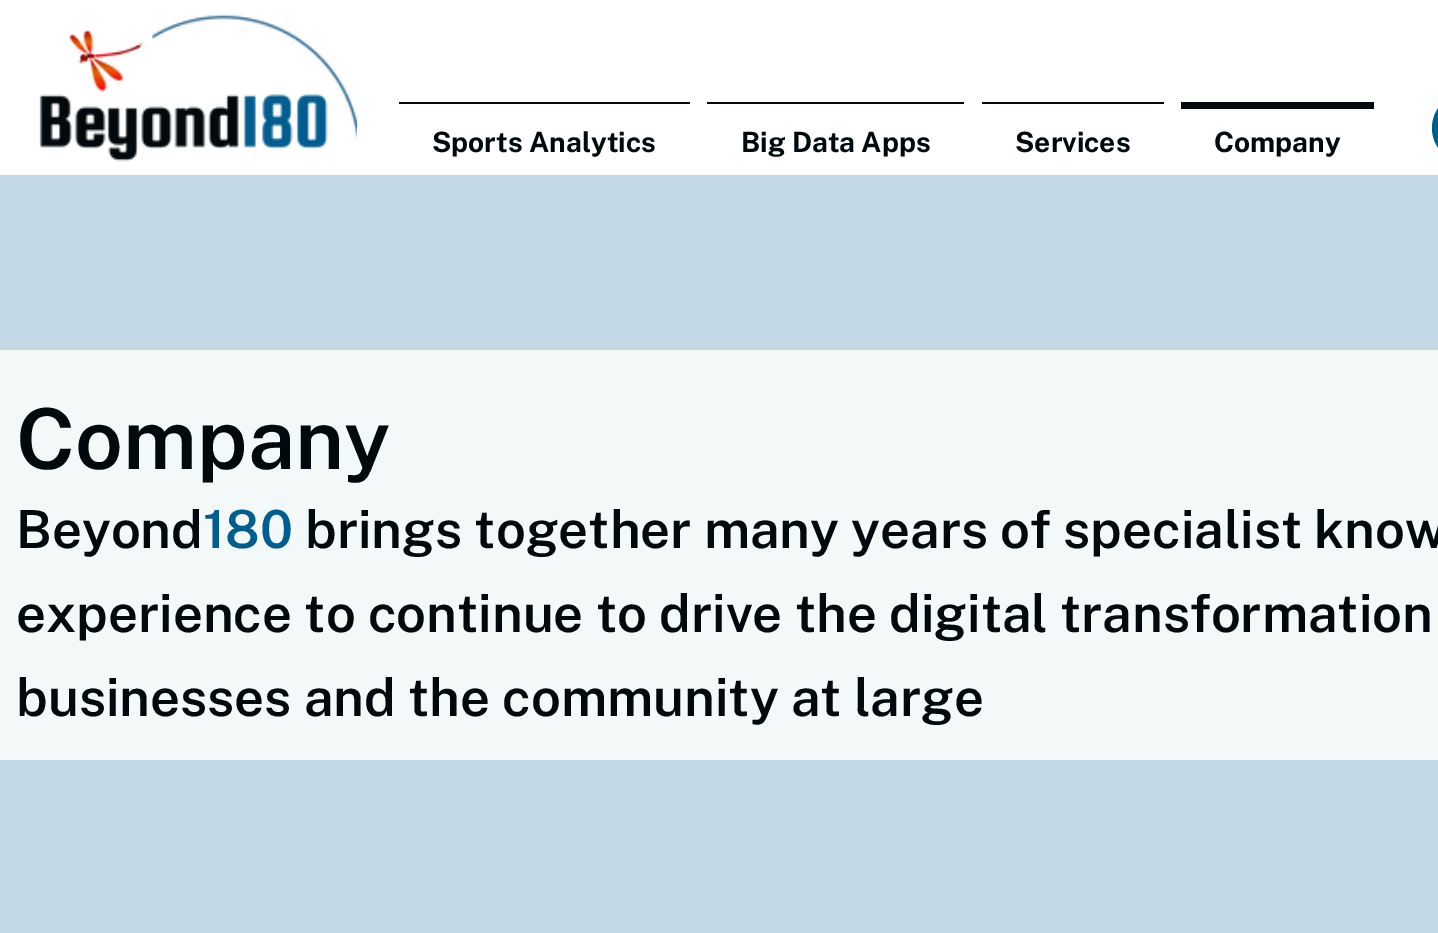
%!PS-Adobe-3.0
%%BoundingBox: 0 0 1438 933
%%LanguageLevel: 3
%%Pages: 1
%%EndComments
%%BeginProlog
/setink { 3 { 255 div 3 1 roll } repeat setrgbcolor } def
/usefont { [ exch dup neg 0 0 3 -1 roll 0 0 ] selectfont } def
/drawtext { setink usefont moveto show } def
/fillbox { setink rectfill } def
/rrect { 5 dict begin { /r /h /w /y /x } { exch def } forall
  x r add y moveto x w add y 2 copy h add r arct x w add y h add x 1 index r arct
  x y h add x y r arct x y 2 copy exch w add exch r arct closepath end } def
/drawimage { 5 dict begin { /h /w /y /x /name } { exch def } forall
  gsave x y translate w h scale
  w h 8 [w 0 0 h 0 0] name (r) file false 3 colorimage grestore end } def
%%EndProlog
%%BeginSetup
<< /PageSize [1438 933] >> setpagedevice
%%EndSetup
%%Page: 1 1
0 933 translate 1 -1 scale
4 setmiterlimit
0 0 1438 933 255 255 255 fillbox
(assets/img1.rgb) 39 14 318 148 drawimage
399 102 291 2 0 9 14 fillbox
(Sports Analytics) 432 152 /PublicSans-Bold 28 0 9 14 drawtext
707 102 257 2 0 9 14 fillbox
(Big Data Apps) 741 152 /PublicSans-Bold 28 0 9 14 drawtext
982 102 182 2 0 9 14 fillbox
(Services) 1015 152 /PublicSans-Bold 28 0 9 14 drawtext
1181 102 193 7 0 9 14 fillbox
(Company) 1214 152 /PublicSans-Bold 28 0 9 14 drawtext
0 93 143 setink
1432 93 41 70 35 rrect fill
0 175 1438 758 194 216 228 fillbox
0 350 1438 410 243 248 249 fillbox
(Company) 16 469 /PublicSans-SemiBold 84 0 9 14 drawtext
(Beyond) 16 548 /PublicSans-SemiBold 52.5 0 9 14 drawtext
(180) 203 548 /PublicSans-SemiBold 52.5 0 93 143 drawtext
(brings together many years of specialist know) 305 548 /PublicSans-SemiBold 52.5 0 9 14 drawtext
(experience to continue to drive the digital transformation) 16 632 /PublicSans-SemiBold 52.5 0 9 14 drawtext
(businesses and the community at large) 16 716 /PublicSans-SemiBold 52.5 0 9 14 drawtext
showpage
%%EOF
